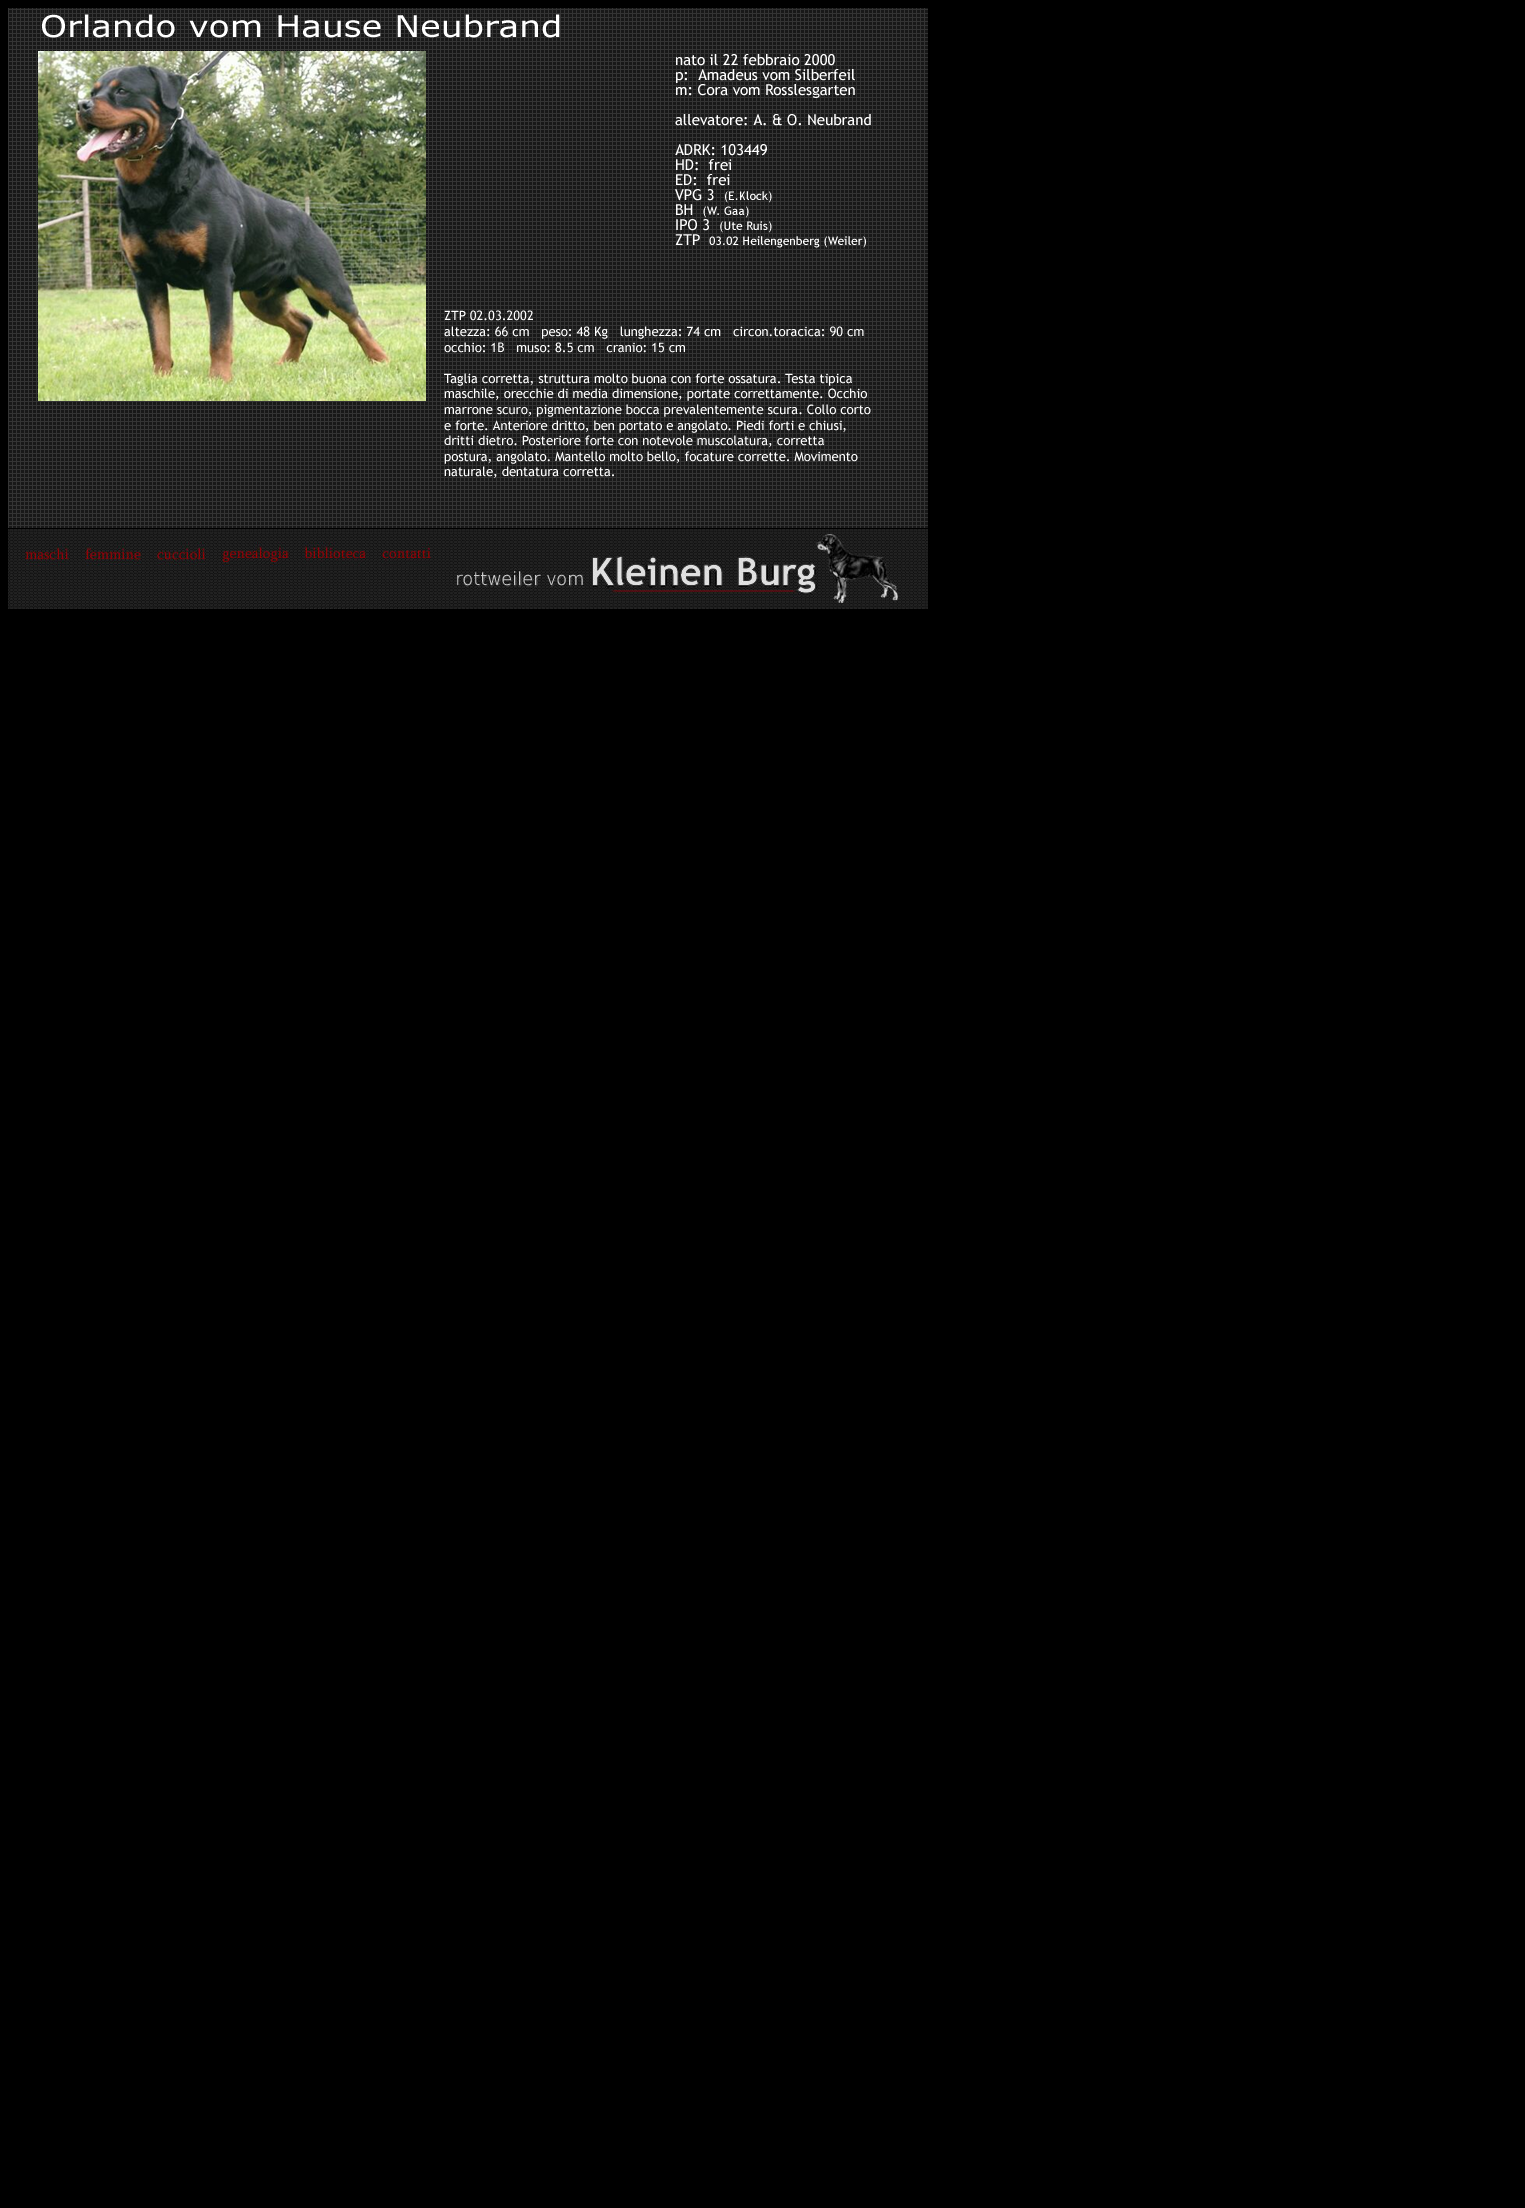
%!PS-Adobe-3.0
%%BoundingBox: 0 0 1525 2208
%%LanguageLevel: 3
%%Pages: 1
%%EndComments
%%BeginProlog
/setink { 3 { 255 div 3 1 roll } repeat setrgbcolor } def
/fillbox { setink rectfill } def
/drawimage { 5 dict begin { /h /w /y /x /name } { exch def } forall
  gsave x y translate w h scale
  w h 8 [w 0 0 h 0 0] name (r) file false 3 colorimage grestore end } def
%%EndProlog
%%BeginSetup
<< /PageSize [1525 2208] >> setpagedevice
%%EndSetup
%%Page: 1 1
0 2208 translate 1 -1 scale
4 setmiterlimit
0 0 1525 2208 0 0 0 fillbox
(assets/img1.rgb) 8 8 920 520 drawimage
(assets/img2.rgb) 8 529 920 5 drawimage
(assets/img3.rgb) 8 534 449 8 drawimage
(assets/img4.rgb) 457 534 441 69 drawimage
(assets/img5.rgb) 898 534 30 75 drawimage
(assets/img6.rgb) 8 542 17 67 drawimage
(assets/img7.rgb) 25 542 44 28 drawimage
(assets/img8.rgb) 69 542 16 67 drawimage
(assets/img9.rgb) 85 542 56 28 drawimage
(assets/img8.rgb) 141 542 16 67 drawimage
(assets/img10.rgb) 157 542 49 28 drawimage
(assets/img11.rgb) 206 542 16 67 drawimage
(assets/img12.rgb) 222 542 67 28 drawimage
(assets/img13.rgb) 289 542 15 67 drawimage
(assets/img14.rgb) 304 542 62 28 drawimage
(assets/img11.rgb) 366 542 16 67 drawimage
(assets/img15.rgb) 382 542 49 28 drawimage
(assets/img16.rgb) 431 542 26 67 drawimage
(assets/img17.rgb) 25 570 44 39 drawimage
(assets/img18.rgb) 85 570 56 39 drawimage
(assets/img19.rgb) 157 570 49 39 drawimage
(assets/img20.rgb) 222 570 67 39 drawimage
(assets/img21.rgb) 304 570 62 39 drawimage
(assets/img22.rgb) 382 570 49 39 drawimage
(assets/img23.rgb) 457 603 441 6 drawimage
showpage
%%EOF
